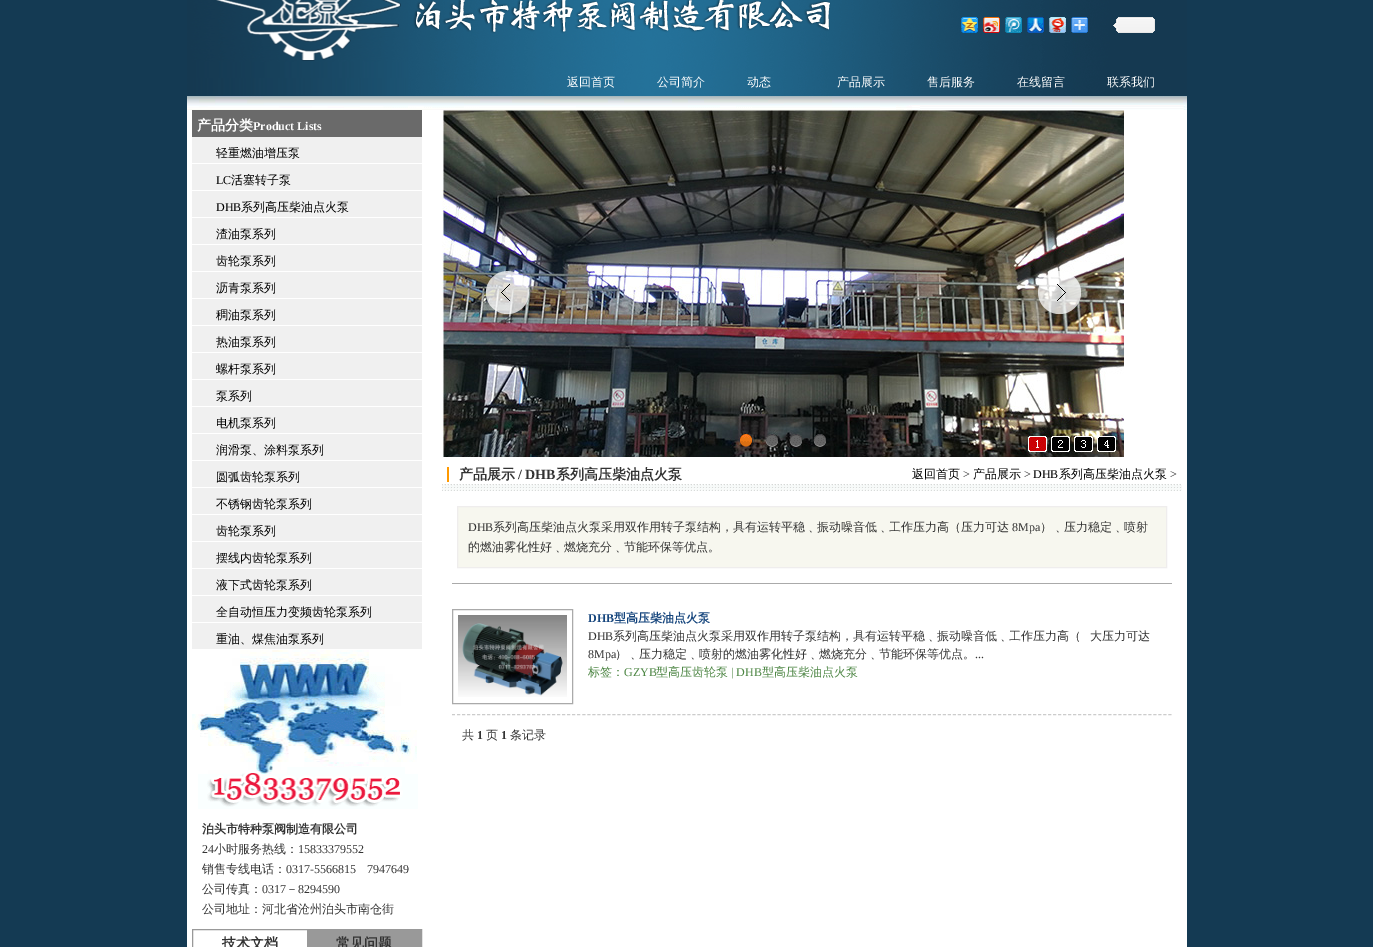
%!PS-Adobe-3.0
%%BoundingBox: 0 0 1373 947
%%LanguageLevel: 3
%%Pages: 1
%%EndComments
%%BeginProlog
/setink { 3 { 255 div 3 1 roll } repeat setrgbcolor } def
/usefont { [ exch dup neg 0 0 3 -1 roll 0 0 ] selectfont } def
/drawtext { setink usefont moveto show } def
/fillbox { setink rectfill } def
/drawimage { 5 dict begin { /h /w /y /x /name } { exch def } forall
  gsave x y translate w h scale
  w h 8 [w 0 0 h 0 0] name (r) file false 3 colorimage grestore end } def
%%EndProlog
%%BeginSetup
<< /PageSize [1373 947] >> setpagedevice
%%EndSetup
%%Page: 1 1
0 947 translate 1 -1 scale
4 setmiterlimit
0 0 1373 947 20 58 83 fillbox
(assets/img1.rgb) 408 0 779 110 drawimage
(assets/img2.rgb) 187 0 221 110 drawimage
(assets/img3.rgb) 961 17 17 16 drawimage
(assets/img4.rgb) 983 17 17 16 drawimage
(assets/img5.rgb) 1005 17 17 16 drawimage
(assets/img6.rgb) 1027 17 17 16 drawimage
(assets/img7.rgb) 1049 17 17 16 drawimage
(assets/img8.rgb) 1071 17 17 16 drawimage
(assets/img9.rgb) 1113 17 42 16 drawimage
(返回首页) 567 86 /WenQuanYiZenHei-Medium 12 255 255 255 drawtext
(公司简介) 657 86 /WenQuanYiZenHei-Medium 12 255 255 255 drawtext
(动态) 747 86 /WenQuanYiZenHei-Medium 12 255 255 255 drawtext
(产品展示) 837 86 /WenQuanYiZenHei-Medium 12 255 255 255 drawtext
(售后服务) 927 86 /WenQuanYiZenHei-Medium 12 255 255 255 drawtext
(在线留言) 1017 86 /WenQuanYiZenHei-Medium 12 255 255 255 drawtext
(联系我们) 1107 86 /WenQuanYiZenHei-Medium 12 255 255 255 drawtext
187 110 1000 837 255 255 255 fillbox
192 110 230 27 106 106 106 fillbox
(产品分类) 197 130 /WenQuanYiZenHei-Bold 14 255 255 255 drawtext
(Product Lists) 253 130 /LiberationSerif-Bold 12 255 255 255 drawtext
192 137 230 512 240 240 240 fillbox
192 163 230 1 255 255 255 fillbox
(轻重燃油增压泵) 216 157 /WenQuanYiZenHei-Medium 12 0 0 0 drawtext
192 190 230 1 255 255 255 fillbox
(LC) 216 184 /LiberationSerif-Regular 12 0 0 0 drawtext
(活塞转子泵) 231 184 /WenQuanYiZenHei-Medium 12 0 0 0 drawtext
192 217 230 1 255 255 255 fillbox
(DHB) 216 211 /LiberationSerif-Regular 12 0 0 0 drawtext
(系列高压柴油点火泵) 241 211 /WenQuanYiZenHei-Medium 12 0 0 0 drawtext
192 244 230 1 255 255 255 fillbox
(渣油泵系列) 216 238 /WenQuanYiZenHei-Medium 12 0 0 0 drawtext
192 271 230 1 255 255 255 fillbox
(齿轮泵系列) 216 265 /WenQuanYiZenHei-Medium 12 0 0 0 drawtext
192 298 230 1 255 255 255 fillbox
(沥青泵系列) 216 292 /WenQuanYiZenHei-Medium 12 0 0 0 drawtext
192 325 230 1 255 255 255 fillbox
(稠油泵系列) 216 319 /WenQuanYiZenHei-Medium 12 0 0 0 drawtext
192 352 230 1 255 255 255 fillbox
(热油泵系列) 216 346 /WenQuanYiZenHei-Medium 12 0 0 0 drawtext
192 379 230 1 255 255 255 fillbox
(螺杆泵系列) 216 373 /WenQuanYiZenHei-Medium 12 0 0 0 drawtext
192 406 230 1 255 255 255 fillbox
(泵系列) 216 400 /WenQuanYiZenHei-Medium 12 0 0 0 drawtext
192 433 230 1 255 255 255 fillbox
(电机泵系列) 216 427 /WenQuanYiZenHei-Medium 12 0 0 0 drawtext
192 460 230 1 255 255 255 fillbox
(润滑泵、涂料泵系列) 216 454 /WenQuanYiZenHei-Medium 12 0 0 0 drawtext
192 487 230 1 255 255 255 fillbox
(圆弧齿轮泵系列) 216 481 /WenQuanYiZenHei-Medium 12 0 0 0 drawtext
192 514 230 1 255 255 255 fillbox
(不锈钢齿轮泵系列) 216 508 /WenQuanYiZenHei-Medium 12 0 0 0 drawtext
192 541 230 1 255 255 255 fillbox
(齿轮泵系列) 216 535 /WenQuanYiZenHei-Medium 12 0 0 0 drawtext
192 568 230 1 255 255 255 fillbox
(摆线内齿轮泵系列) 216 562 /WenQuanYiZenHei-Medium 12 0 0 0 drawtext
192 595 230 1 255 255 255 fillbox
(液下式齿轮泵系列) 216 589 /WenQuanYiZenHei-Medium 12 0 0 0 drawtext
192 622 230 1 255 255 255 fillbox
(全自动恒压力变频齿轮泵系列) 216 616 /WenQuanYiZenHei-Medium 12 0 0 0 drawtext
(重油、煤焦油泵系列) 216 643 /WenQuanYiZenHei-Medium 12 0 0 0 drawtext
(assets/img10.rgb) 192 650 226 159 drawimage
(泊头市特种泵阀制造有限公司) 202 833 /WenQuanYiZenHei-Bold 12 51 51 51 drawtext
(24) 202 853 /LiberationSerif-Regular 12 51 51 51 drawtext
(小时服务热线：) 214 853 /WenQuanYiZenHei-Medium 12 51 51 51 drawtext
(15833379552) 298 853 /LiberationSerif-Regular 12 51 51 51 drawtext
(销售专线电话：) 202 873 /WenQuanYiZenHei-Medium 12 51 51 51 drawtext
(0317-5566815) 286 873 /LiberationSerif-Regular 12 51 51 51 drawtext
(7947649) 367 873 /LiberationSerif-Regular 12 51 51 51 drawtext
(公司传真：) 202 893 /WenQuanYiZenHei-Medium 12 51 51 51 drawtext
(0317) 262 893 /LiberationSerif-Regular 12 51 51 51 drawtext
(－) 286 893 /WenQuanYiZenHei-Medium 12 51 51 51 drawtext
(8294590) 298 893 /LiberationSerif-Regular 12 51 51 51 drawtext
(公司地址：河北省沧州泊头市南仓街) 202 913 /WenQuanYiZenHei-Medium 12 51 51 51 drawtext
153 153 153 setink
192.5 929.5 229 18 rectstroke
(技术文档) 222 948 /WenQuanYiZenHei-Bold 14 51 51 51 drawtext
307 930 114 17 153 153 153 fillbox
(常见问题) 336 948 /WenQuanYiZenHei-Bold 14 51 51 51 drawtext
(assets/img11.rgb) 442 110 682 348 drawimage
(assets/img12.rgb) 442 484 740 7 drawimage
(产品展示) 459 479 /WenQuanYiZenHei-Bold 14 51 51 51 drawtext
447 467 2 15 255 153 0 fillbox
(/ DHB) 518 479 /LiberationSerif-Bold 14 51 51 51 drawtext
(系列高压柴油点火泵) 556 479 /WenQuanYiZenHei-Bold 14 51 51 51 drawtext
(返回首页) 912 478 /WenQuanYiZenHei-Medium 12 0 0 0 drawtext
(>) 963 478 /LiberationSerif-Regular 12 51 51 51 drawtext
(产品展示) 973 478 /WenQuanYiZenHei-Medium 12 0 0 0 drawtext
(>) 1024 478 /LiberationSerif-Regular 12 51 51 51 drawtext
(DHB) 1033 478 /LiberationSerif-Regular 12 0 0 0 drawtext
(系列高压柴油点火泵) 1059 478 /WenQuanYiZenHei-Medium 12 0 0 0 drawtext
(>) 1170 478 /LiberationSerif-Regular 12 51 51 51 drawtext
452 583 720 1 170 170 170 fillbox
247 247 239 setink
457.5 506.5 moveto 1166.5 506.5 lineto 1166.5 567.5 lineto 457.5 567.5 lineto closepath gsave fill grestore
239 237 237 setink
stroke
(DHB) 468 531 /LiberationSerif-Regular 12 51 51 51 drawtext
(系列高压柴油点火泵采用双作用转子泵结构，具有运转平稳﹑振动噪音低﹑工作压力高（压力可达) 493 531 /WenQuanYiZenHei-Medium 12 51 51 51 drawtext
(8Mpa) 1012 531 /LiberationSerif-Regular 12 51 51 51 drawtext
(）﹑压力稳定﹑喷射) 1040 531 /WenQuanYiZenHei-Medium 12 51 51 51 drawtext
(的燃油雾化性好﹑燃烧充分﹑节能环保等优点。) 468 551 /WenQuanYiZenHei-Medium 12 51 51 51 drawtext
204 204 204 setink
[3 2.01] 0 setdash
452 714.5 moveto 1172 714.5 lineto stroke
170 170 170 setink
[] 0 setdash
452.5 609.5 120 94 rectstroke
(assets/img13.rgb) 458 615 109 82 drawimage
(DHB) 588 622 /LiberationSerif-Bold 12 21 69 125 drawtext
(型高压柴油点火泵) 614 622 /WenQuanYiZenHei-Bold 12 21 69 125 drawtext
(DHB) 588 640 /LiberationSerif-Regular 12 51 51 51 drawtext
(系列高压柴油点火泵采用双作用转子泵结构，具有运转平稳﹑振动噪音低﹑工作压力高（) 613 640 /WenQuanYiZenHei-Medium 12 51 51 51 drawtext
(大压力可达) 1090 640 /WenQuanYiZenHei-Medium 12 51 51 51 drawtext
(8Mpa) 588 658 /LiberationSerif-Regular 12 51 51 51 drawtext
(）﹑压力稳定﹑喷射的燃油雾化性好﹑燃烧充分﹑节能环保等优点。) 615 658 /WenQuanYiZenHei-Medium 12 51 51 51 drawtext
(...) 975 658 /LiberationSerif-Regular 12 51 51 51 drawtext
(标签：) 588 676 /WenQuanYiZenHei-Medium 12 78 135 69 drawtext
(GZYB) 624 676 /LiberationSerif-Regular 12 78 135 69 drawtext
(型高压齿轮泵) 656 676 /WenQuanYiZenHei-Medium 12 78 135 69 drawtext
(| DHB) 731 676 /LiberationSerif-Regular 12 78 135 69 drawtext
(型高压柴油点火泵) 762 676 /WenQuanYiZenHei-Medium 12 78 135 69 drawtext
(共) 462 739 /WenQuanYiZenHei-Medium 12 51 51 51 drawtext
(1) 477 739 /LiberationSerif-Bold 12 51 51 51 drawtext
(页) 486 739 /WenQuanYiZenHei-Medium 12 51 51 51 drawtext
(1) 501 739 /LiberationSerif-Bold 12 51 51 51 drawtext
(条记录) 510 739 /WenQuanYiZenHei-Medium 12 51 51 51 drawtext
showpage
%%EOF
